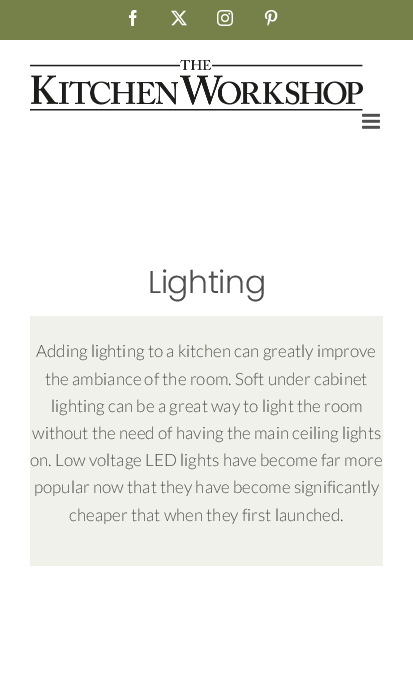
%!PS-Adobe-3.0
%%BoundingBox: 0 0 413 684
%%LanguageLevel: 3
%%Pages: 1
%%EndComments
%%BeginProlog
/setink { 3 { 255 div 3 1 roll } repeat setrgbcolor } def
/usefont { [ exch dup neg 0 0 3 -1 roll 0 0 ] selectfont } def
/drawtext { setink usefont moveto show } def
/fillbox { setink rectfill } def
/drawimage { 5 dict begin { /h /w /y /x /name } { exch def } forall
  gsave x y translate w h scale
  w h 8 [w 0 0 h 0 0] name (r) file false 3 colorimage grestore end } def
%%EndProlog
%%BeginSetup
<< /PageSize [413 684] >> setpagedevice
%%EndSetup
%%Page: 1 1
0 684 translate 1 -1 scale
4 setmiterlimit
0 0 413 684 255 255 255 fillbox
0 0 413 40 118 129 74 fillbox
(assets/img1.rgb) 129 10 8 16 drawimage
(assets/img2.rgb) 171 10 16 16 drawimage
(assets/img3.rgb) 217 10 16 16 drawimage
(assets/img4.rgb) 264 10 14 16 drawimage
(assets/img5.rgb) 30 60 333 51 drawimage
(assets/img6.rgb) 362 113 18 16 drawimage
/Poppins-Light 31.5 usefont
79 79 79 setink
148 293 moveto -0.5 0 (Lighting) ashow
30 316 353 250 241 241 235 fillbox
(Adding lighting to a kitchen can greatly improve) 36 357 /Lato-Light 17 79 79 79 drawtext
(the ambiance of the room. Soft under cabinet) 45 385 /Lato-Light 17 79 79 79 drawtext
(lighting can be a great way to light the room) 51 412 /Lato-Light 17 79 79 79 drawtext
(without the need of having the main ceiling lights) 32 439 /Lato-Light 17 79 79 79 drawtext
(on. Low voltage LED lights have become far more) 30 466 /Lato-Light 17 79 79 79 drawtext
(popular now that they have become significantly) 34 493 /Lato-Light 17 79 79 79 drawtext
(cheaper that when they first launched.) 69 521 /Lato-Light 17 79 79 79 drawtext
showpage
%%EOF
